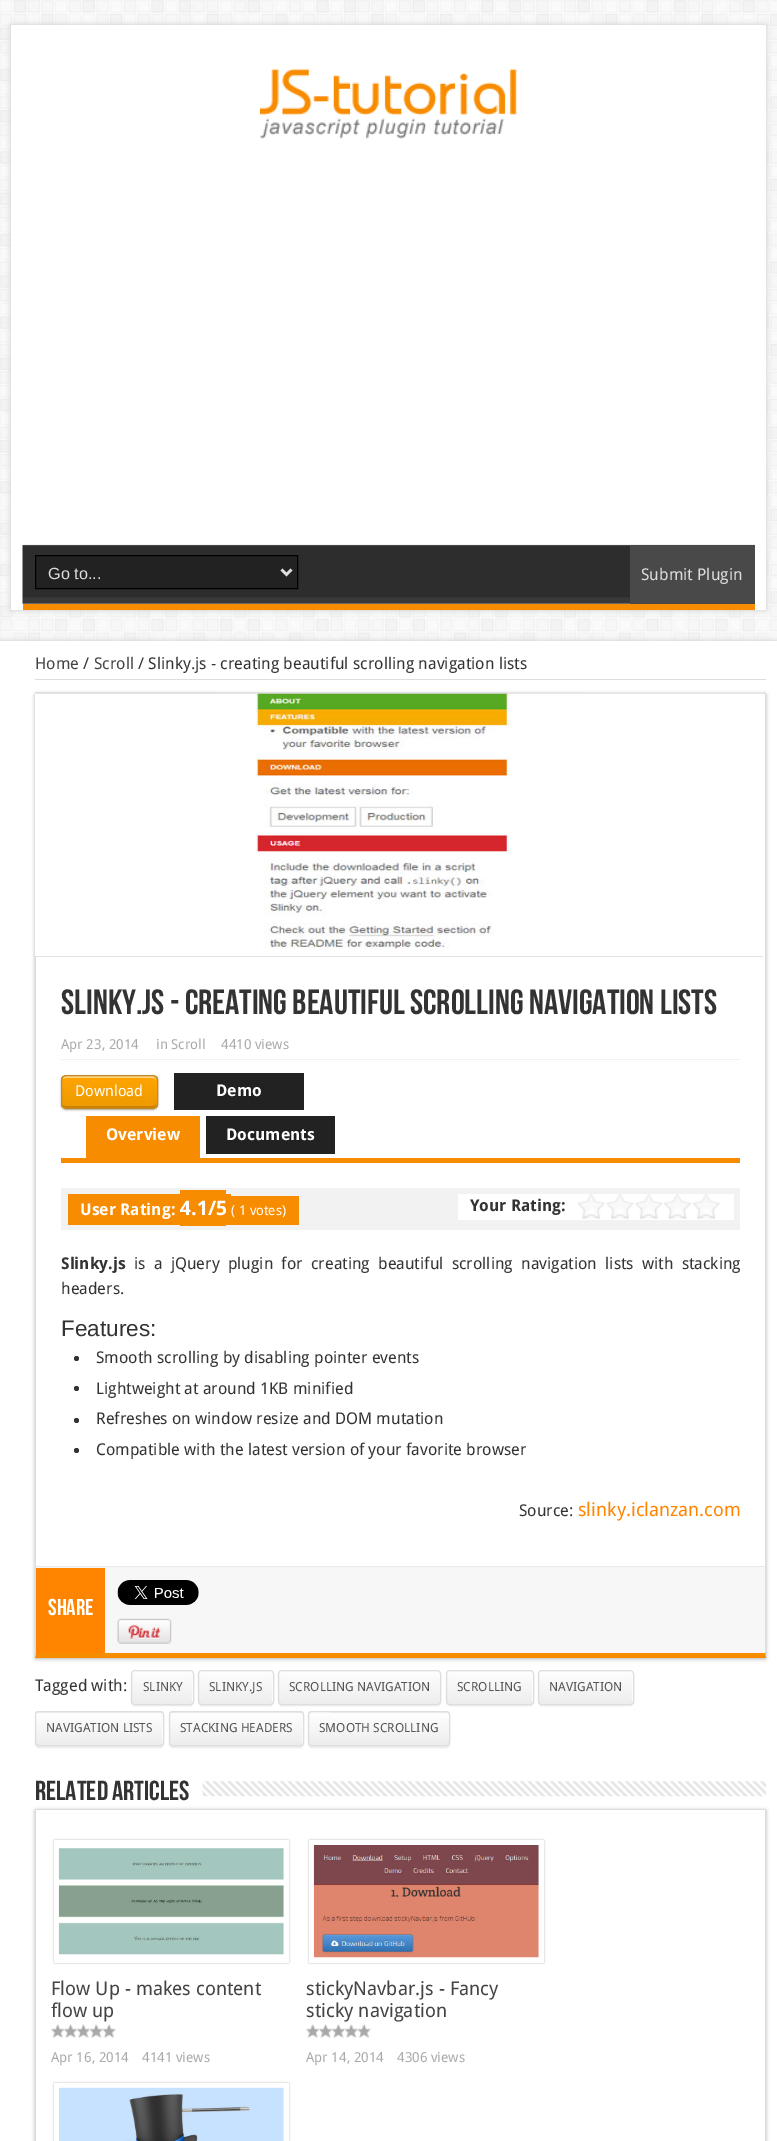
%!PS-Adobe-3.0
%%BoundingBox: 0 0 777 2141
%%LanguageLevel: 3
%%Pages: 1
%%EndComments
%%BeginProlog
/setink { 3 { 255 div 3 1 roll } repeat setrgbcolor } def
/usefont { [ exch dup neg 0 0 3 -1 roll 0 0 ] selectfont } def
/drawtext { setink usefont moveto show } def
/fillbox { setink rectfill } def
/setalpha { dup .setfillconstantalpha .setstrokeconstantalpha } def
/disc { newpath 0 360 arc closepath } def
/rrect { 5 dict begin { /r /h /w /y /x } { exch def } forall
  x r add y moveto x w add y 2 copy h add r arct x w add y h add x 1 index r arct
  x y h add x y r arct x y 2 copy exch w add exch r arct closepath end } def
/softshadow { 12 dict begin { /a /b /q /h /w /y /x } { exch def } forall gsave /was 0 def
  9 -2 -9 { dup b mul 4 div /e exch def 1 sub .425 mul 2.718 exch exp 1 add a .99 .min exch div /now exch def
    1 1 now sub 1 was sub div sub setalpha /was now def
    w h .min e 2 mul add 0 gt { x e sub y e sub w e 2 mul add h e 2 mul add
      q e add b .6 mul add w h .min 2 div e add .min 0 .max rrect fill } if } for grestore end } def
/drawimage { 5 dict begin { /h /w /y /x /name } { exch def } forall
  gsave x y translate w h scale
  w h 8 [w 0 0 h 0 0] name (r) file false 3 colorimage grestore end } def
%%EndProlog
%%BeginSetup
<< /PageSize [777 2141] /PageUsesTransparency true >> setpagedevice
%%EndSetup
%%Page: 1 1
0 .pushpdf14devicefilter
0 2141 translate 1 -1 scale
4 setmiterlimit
0 0 777 2141 255 255 255 fillbox
(assets/img1.rgb) 0 0 777 641 drawimage
202 202 202 setink
11 25 755 585 0 3 1 softshadow
11 25 755 585 255 255 255 fillbox
(assets/img2.rgb) 260 68 257 71 drawimage
(assets/img3.rgb) 22 544 733 60 drawimage
23 604 732 6 248 140 0 fillbox
34 34 34 setink
35.5 555.5 moveto 297.5 555.5 lineto 297.5 588.5 lineto 35.5 588.5 lineto closepath gsave fill grestore
0 0 0 setink
stroke
221 221 221 setink
2.5 setlinewidth
281.5 569.5 moveto 286.5 574.5 lineto 291.5 569.5 lineto stroke
(Go to...) 48 579 /LiberationSans-Regular 16.25 221 221 221 drawtext
630 546 125 58 73 73 73 fillbox
(Submit Plugin) 641 580 /DroidSans-Regular 16.25 221 221 221 drawtext
202 202 202 setink
0 641 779 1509 0 3 1 softshadow
0 641 777 1500 255 255 255 fillbox
35 679 731 1 221 221 221 fillbox
(Home) 35 669 /DroidSans-Regular 16.25 68 68 68 drawtext
(/) 83 669 /DroidSans-Regular 16.25 51 51 51 drawtext
(Scroll) 94 669 /DroidSans-Regular 16.25 68 68 68 drawtext
(/ Slinky.js - creating beautiful scrolling navigation lists) 138 669 /DroidSans-Regular 16.25 51 51 51 drawtext
gsave
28 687 moveto 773 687 lineto 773 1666 lineto 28 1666 lineto closepath 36 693 moveto 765 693 lineto 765.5 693 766 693.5 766 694 curveto 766 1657 lineto 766 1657.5 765.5 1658 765 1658 curveto 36 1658 lineto 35.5 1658 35 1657.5 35 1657 curveto 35 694 lineto 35 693.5 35.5 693 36 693 curveto closepath eoclip newpath
181 181 181 setink
35 694 731 965 1 2 1 softshadow
grestore
221 221 221 setink
35 693 moveto 36 692 lineto 766 693 lineto 765 694 lineto 36 694 lineto closepath fill
766 693 moveto 766 1656 lineto 765 1652 lineto 765 694 lineto closepath fill
248 140 0 setink
36 1658 moveto 35 1657 lineto 36 1652 lineto 765 1652 lineto 766 1658 lineto closepath fill
221 221 221 setink
36 694 moveto 35 693 lineto 35 694 lineto 35 1657 lineto 36 1652 lineto closepath fill
35 956 728 1 216 216 216 fillbox
(assets/img4.rgb) 35 693 728 264 drawimage
(Slinky.js - creating beautiful scrolling navigation lists) 61 1014 /BebasNeue-Regular 35 51 51 51 drawtext
61 1059 679 1 242 242 242 fillbox
(Apr 23, 2014) 61 1049 /DroidSans-Regular 13.75 170 170 170 drawtext
(in Scroll) 156 1049 /DroidSans-Regular 13.75 170 170 170 drawtext
(4410 views) 221 1049 /DroidSans-Regular 13.75 170 170 170 drawtext
0 0 0 setink
61 1076 97 34 5 1 0.3 softshadow
gsave
61 1075 97 34 5 rrect clip newpath
gsave 61 1076 moveto 158 1076 lineto 158 1108 lineto 61 1108 lineto closepath clip newpath
<< /ShadingType 2 /ColorSpace /DeviceRGB /Coords [109 1076 109 1108] /Extend [true true] /Function << /FunctionType 2 /Domain [0 1] /C0 [1 0.647 0] /C1 [0.929 0.6 0] /N 1 >> >> shfill grestore
grestore
202 130 0 setink
63 1105 moveto 64 1107 65 1108 67 1108 curveto 152 1108 lineto 154 1108 156 1106 156 1104 curveto 156 1102 lineto 156 1105 155 1106 152 1106 curveto 66 1106 lineto 65 1106 64 1106 63 1105 curveto closepath fill
255 210 128 setink
66 1078 moveto 152 1078 lineto 155 1078 156 1079 156 1081 curveto 156 1080 lineto 156 1078 154 1076 152 1076 curveto 67 1076 lineto 65 1076 64 1077 63 1079 curveto closepath fill
190 138 43 setink
1 setlinewidth
61.5 1075.5 96 33 4.5 rrect stroke
(Download) 75 1096 /DroidSans-Regular 15 255 255 255 drawtext
174 1073 130 37 34 34 34 fillbox
(Demo) 216 1096 /DroidSans-Bold 16.25 255 255 255 drawtext
86 1116 114 42 248 140 0 fillbox
(Overview) 106 1140 /DroidSans-Bold 16.25 255 255 255 drawtext
206 1116 129 38 34 34 34 fillbox
(Documents) 226 1140 /DroidSans-Bold 16.25 255 255 255 drawtext
61 1158 679 5 248 140 0 fillbox
61 1188 679 42 242 242 242 fillbox
68 1194 112 31 248 140 0 fillbox
(User Rating:) 80 1215 /DroidSans-Bold 16.25 255 255 255 drawtext
180 1190 46 36 248 140 0 fillbox
(4.1/5) 180 1215 /DroidSans-Bold 20 255 255 255 drawtext
226 1194 5 31 248 140 0 fillbox
231 1196 68 29 248 140 0 fillbox
(\( 1 votes\)) 231 1215 /DroidSans-Regular 13.5 255 255 255 drawtext
458 1194 276 26 255 255 255 fillbox
(Your Rating:) 470 1211 /DroidSans-Bold 16.25 51 51 51 drawtext
(assets/img5.rgb) 578 1194 142 25 drawimage
(Slinky.js) 61 1269 /DroidSans-Bold 16.25 51 51 51 drawtext
/DroidSans-Regular 16.25 usefont
134 1269 moveto 4 0 32 (is a jQuery plugin for creating beautiful scrolling navigation lists with stacking) widthshow
(headers.) 61 1294 /DroidSans-Regular 16.25 51 51 51 drawtext
(Features:) 61 1336 /LiberationSans-Regular 22.5 51 51 51 drawtext
76.5 1358.5 2.5 disc fill
(Smooth scrolling by disabling pointer events) 96 1363 /DroidSans-Regular 16.25 51 51 51 drawtext
76.5 1388.5 2.5 disc fill
(Lightweight at around 1KB minified) 96 1394 /DroidSans-Regular 16.25 51 51 51 drawtext
76.5 1420.5 2.5 disc fill
(Refreshes on window resize and DOM mutation) 96 1424 /DroidSans-Regular 16.25 51 51 51 drawtext
76.5 1450.5 2.5 disc fill
(Compatible with the latest version of your favorite browser) 96 1455 /DroidSans-Regular 16.25 51 51 51 drawtext
(Source:) 519 1516 /DroidSans-Regular 16.25 51 51 51 drawtext
(slinky.iclanzan.com) 578 1516 /DroidSans-Regular 18.75 255 133 0 drawtext
36 1567 729 86 247 247 247 fillbox
36 1566 729 1 234 234 234 fillbox
36 1568 69 85 255 133 0 fillbox
(Share) 48 1615 /BebasNeue-Regular 23 255 255 255 drawtext
(assets/img6.rgb) 117 1580 82 25 drawimage
(assets/img7.rgb) 117 1618 55 26 drawimage
(Tagged with:) 35 1691 /DroidSans-Regular 16.25 51 51 51 drawtext
234 234 234 setink
131 1671 63 35 4 0.5 1 softshadow
gsave
131 1670 63 35 4 rrect clip newpath
gsave 131 1671 moveto 194 1671 lineto 194 1704 lineto 131 1704 lineto closepath clip newpath
<< /ShadingType 2 /ColorSpace /DeviceRGB /Coords [163 1671 163 1704] /Extend [true true] /Function << /FunctionType 3 /Domain [0 1] /Functions [<< /FunctionType 2 /Domain [0 1] /C0 [1 1 1] /C1 [0.965 0.965 0.965] /N 1 >> << /FunctionType 2 /Domain [0 1] /C0 [0.965 0.965 0.965] /C1 [0.929 0.929 0.929] /N 1 >>] /Bounds [0.47] /Encode [0 1 0 1] >> >> shfill grestore
grestore
251 251 251 setink
135 1672 moveto 172 1672 lineto 193 1672 192 1667 192 1684 curveto 192 1704 lineto 192 1703 193 1702 193 1702 curveto 193 1674 lineto 193 1672 192 1671 190 1671 curveto 136 1671 lineto 134 1671 133 1672 133 1673 curveto closepath fill
222 222 222 setink
131.5 1670.5 62 34 3.5 rrect stroke
(SLINKY) 143 1691 /DroidSans-Regular 12.5 85 85 85 drawtext
234 234 234 setink
198 1671 76 35 4 0.5 1 softshadow
gsave
198 1670 76 35 4 rrect clip newpath
gsave 198 1671 moveto 274 1671 lineto 274 1704 lineto 198 1704 lineto closepath clip newpath
<< /ShadingType 2 /ColorSpace /DeviceRGB /Coords [236 1671 236 1704] /Extend [true true] /Function << /FunctionType 3 /Domain [0 1] /Functions [<< /FunctionType 2 /Domain [0 1] /C0 [1 1 1] /C1 [0.965 0.965 0.965] /N 1 >> << /FunctionType 2 /Domain [0 1] /C0 [0.965 0.965 0.965] /C1 [0.929 0.929 0.929] /N 1 >>] /Bounds [0.47] /Encode [0 1 0 1] >> >> shfill grestore
grestore
251 251 251 setink
201 1672 moveto 247 1672 lineto 275 1672 272 1666 272 1688 curveto 272 1704 lineto 272 1703 273 1702 273 1702 curveto 273 1674 lineto 273 1672 272 1671 270 1671 curveto 202 1671 lineto 200 1671 199 1672 199 1674 curveto 199 1675 lineto 199 1674 200 1672 201 1672 curveto closepath fill
222 222 222 setink
198.5 1670.5 75 34 3.5 rrect stroke
(SLINKY.JS) 209 1691 /DroidSans-Regular 12.5 85 85 85 drawtext
234 234 234 setink
278 1671 163 35 4 0.5 1 softshadow
gsave
278 1670 163 35 4 rrect clip newpath
gsave 278 1671 moveto 441 1671 lineto 441 1704 lineto 278 1704 lineto closepath clip newpath
<< /ShadingType 2 /ColorSpace /DeviceRGB /Coords [359 1671 359 1704] /Extend [true true] /Function << /FunctionType 3 /Domain [0 1] /Functions [<< /FunctionType 2 /Domain [0 1] /C0 [1 1 1] /C1 [0.965 0.965 0.965] /N 1 >> << /FunctionType 2 /Domain [0 1] /C0 [0.965 0.965 0.965] /C1 [0.929 0.929 0.929] /N 1 >>] /Bounds [0.47] /Encode [0 1 0 1] >> >> shfill grestore
grestore
251 251 251 setink
281 1672 moveto 438 1672 lineto 439 1672 440 1674 440 1675 curveto 440 1673 440 1671 438 1671 curveto 282 1671 lineto 279 1671 279 1673 279 1675 curveto 279 1674 280 1672 281 1672 curveto closepath fill
222 222 222 setink
278.5 1670.5 162 34 3.5 rrect stroke
(SCROLLING NAVIGATION) 289 1691 /DroidSans-Regular 12.5 85 85 85 drawtext
234 234 234 setink
446 1671 88 35 4 0.5 1 softshadow
gsave
446 1670 88 35 4 rrect clip newpath
gsave 446 1671 moveto 534 1671 lineto 534 1704 lineto 446 1704 lineto closepath clip newpath
<< /ShadingType 2 /ColorSpace /DeviceRGB /Coords [490 1671 490 1704] /Extend [true true] /Function << /FunctionType 3 /Domain [0 1] /Functions [<< /FunctionType 2 /Domain [0 1] /C0 [1 1 1] /C1 [0.965 0.965 0.965] /N 1 >> << /FunctionType 2 /Domain [0 1] /C0 [0.965 0.965 0.965] /C1 [0.929 0.929 0.929] /N 1 >>] /Bounds [0.47] /Encode [0 1 0 1] >> >> shfill grestore
grestore
251 251 251 setink
450 1672 moveto 517 1672 lineto 534 1672 532 1669 532 1684 curveto 532 1704 lineto 532 1703 533 1702 533 1702 curveto 533 1674 lineto 533 1672 532 1671 530 1671 curveto 450 1671 lineto 449 1671 448 1672 448 1674 curveto 448 1675 lineto 448 1674 449 1672 450 1672 curveto closepath fill
222 222 222 setink
446.5 1670.5 87 34 3.5 rrect stroke
(SCROLLING) 457 1691 /DroidSans-Regular 12.5 85 85 85 drawtext
234 234 234 setink
538 1671 96 35 4 0.5 1 softshadow
gsave
538 1670 96 35 4 rrect clip newpath
gsave 538 1671 moveto 634 1671 lineto 634 1704 lineto 538 1704 lineto closepath clip newpath
<< /ShadingType 2 /ColorSpace /DeviceRGB /Coords [586 1671 586 1704] /Extend [true true] /Function << /FunctionType 3 /Domain [0 1] /Functions [<< /FunctionType 2 /Domain [0 1] /C0 [1 1 1] /C1 [0.965 0.965 0.965] /N 1 >> << /FunctionType 2 /Domain [0 1] /C0 [0.965 0.965 0.965] /C1 [0.929 0.929 0.929] /N 1 >>] /Bounds [0.47] /Encode [0 1 0 1] >> >> shfill grestore
grestore
251 251 251 setink
541 1672 moveto 615 1672 lineto 634 1672 632 1669 632 1684 curveto 632 1704 lineto 632 1703 633 1702 633 1702 curveto 633 1674 lineto 633 1672 632 1671 630 1671 curveto 542 1671 lineto 540 1671 539 1672 539 1674 curveto 539 1675 lineto 539 1674 540 1672 541 1672 curveto closepath fill
222 222 222 setink
538.5 1670.5 95 34 3.5 rrect stroke
(NAVIGATION) 549 1691 /DroidSans-Regular 12.5 85 85 85 drawtext
234 234 234 setink
35 1713 129 35 4 0.5 1 softshadow
gsave
35 1711 129 35 4 rrect clip newpath
gsave 35 1711 moveto 164 1711 lineto 164 1713 lineto 35 1713 lineto closepath clip newpath
<< /ShadingType 2 /ColorSpace /DeviceRGB /Coords [99 1680 99 1713] /Extend [true true] /Function << /FunctionType 3 /Domain [0 1] /Functions [<< /FunctionType 2 /Domain [0 1] /C0 [1 1 1] /C1 [0.965 0.965 0.965] /N 1 >> << /FunctionType 2 /Domain [0 1] /C0 [0.965 0.965 0.965] /C1 [0.929 0.929 0.929] /N 1 >>] /Bounds [0.47] /Encode [0 1 0 1] >> >> shfill grestore
gsave 35 1713 moveto 164 1713 lineto 164 1745 lineto 35 1745 lineto closepath clip newpath
<< /ShadingType 2 /ColorSpace /DeviceRGB /Coords [99 1713 99 1745] /Extend [true true] /Function << /FunctionType 3 /Domain [0 1] /Functions [<< /FunctionType 2 /Domain [0 1] /C0 [1 1 1] /C1 [0.965 0.965 0.965] /N 1 >> << /FunctionType 2 /Domain [0 1] /C0 [0.965 0.965 0.965] /C1 [0.929 0.929 0.929] /N 1 >>] /Bounds [0.47] /Encode [0 1 0 1] >> >> shfill grestore
grestore
251 251 251 setink
39 1714 moveto 160 1714 lineto 164 1714 162 1724 162 1725 curveto 162 1745 lineto 163 1744 163 1743 163 1742 curveto 163 1716 lineto 163 1714 162 1713 160 1713 curveto 38 1713 lineto 37 1713 36 1714 36 1716 curveto 36 1715 37 1714 39 1714 curveto closepath fill
222 222 222 setink
35.5 1711.5 128 34 3.5 rrect stroke
(NAVIGATION LISTS) 46 1732 /DroidSans-Regular 12.5 85 85 85 drawtext
234 234 234 setink
169 1713 135 35 4 0.5 1 softshadow
gsave
169 1711 135 35 4 rrect clip newpath
gsave 169 1711 moveto 304 1711 lineto 304 1713 lineto 169 1713 lineto closepath clip newpath
<< /ShadingType 2 /ColorSpace /DeviceRGB /Coords [236 1680 236 1713] /Extend [true true] /Function << /FunctionType 3 /Domain [0 1] /Functions [<< /FunctionType 2 /Domain [0 1] /C0 [1 1 1] /C1 [0.965 0.965 0.965] /N 1 >> << /FunctionType 2 /Domain [0 1] /C0 [0.965 0.965 0.965] /C1 [0.929 0.929 0.929] /N 1 >>] /Bounds [0.47] /Encode [0 1 0 1] >> >> shfill grestore
gsave 169 1713 moveto 304 1713 lineto 304 1745 lineto 169 1745 lineto closepath clip newpath
<< /ShadingType 2 /ColorSpace /DeviceRGB /Coords [236 1713 236 1745] /Extend [true true] /Function << /FunctionType 3 /Domain [0 1] /Functions [<< /FunctionType 2 /Domain [0 1] /C0 [1 1 1] /C1 [0.965 0.965 0.965] /N 1 >> << /FunctionType 2 /Domain [0 1] /C0 [0.965 0.965 0.965] /C1 [0.929 0.929 0.929] /N 1 >>] /Bounds [0.47] /Encode [0 1 0 1] >> >> shfill grestore
grestore
251 251 251 setink
172 1714 moveto 300 1714 lineto 304 1714 302 1724 302 1725 curveto 302 1745 lineto 303 1744 303 1743 303 1742 curveto 303 1716 lineto 303 1714 302 1713 300 1713 curveto 172 1713 lineto 171 1713 170 1714 170 1716 curveto 170 1715 171 1714 172 1714 curveto closepath fill
222 222 222 setink
169.5 1711.5 134 34 3.5 rrect stroke
(STACKING HEADERS) 180 1732 /DroidSans-Regular 12.5 85 85 85 drawtext
234 234 234 setink
308 1713 142 35 4 0.5 1 softshadow
gsave
308 1711 142 35 4 rrect clip newpath
gsave 308 1711 moveto 450 1711 lineto 450 1713 lineto 308 1713 lineto closepath clip newpath
<< /ShadingType 2 /ColorSpace /DeviceRGB /Coords [379 1680 379 1713] /Extend [true true] /Function << /FunctionType 3 /Domain [0 1] /Functions [<< /FunctionType 2 /Domain [0 1] /C0 [1 1 1] /C1 [0.965 0.965 0.965] /N 1 >> << /FunctionType 2 /Domain [0 1] /C0 [0.965 0.965 0.965] /C1 [0.929 0.929 0.929] /N 1 >>] /Bounds [0.47] /Encode [0 1 0 1] >> >> shfill grestore
gsave 308 1713 moveto 450 1713 lineto 450 1745 lineto 308 1745 lineto closepath clip newpath
<< /ShadingType 2 /ColorSpace /DeviceRGB /Coords [379 1713 379 1745] /Extend [true true] /Function << /FunctionType 3 /Domain [0 1] /Functions [<< /FunctionType 2 /Domain [0 1] /C0 [1 1 1] /C1 [0.965 0.965 0.965] /N 1 >> << /FunctionType 2 /Domain [0 1] /C0 [0.965 0.965 0.965] /C1 [0.929 0.929 0.929] /N 1 >>] /Bounds [0.47] /Encode [0 1 0 1] >> >> shfill grestore
grestore
251 251 251 setink
311 1714 moveto 446 1714 lineto 448 1714 449 1715 449 1716 curveto 448 1714 lineto 446 1713 lineto 334 1713 lineto 331 1713 309 1708 309 1716 curveto 309 1715 310 1714 311 1714 curveto closepath fill
222 222 222 setink
308.5 1711.5 141 34 3.5 rrect stroke
(SMOOTH SCROLLING) 319 1732 /DroidSans-Regular 12.5 85 85 85 drawtext
(Related Articles) 35 1800 /BebasNeue-Regular 27.5 51 51 51 drawtext
(assets/img8.rgb) 202 1781 564 16 drawimage
gsave
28 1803 moveto 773 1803 lineto 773 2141 lineto 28 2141 lineto closepath 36 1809 moveto 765 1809 lineto 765.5 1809 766 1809.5 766 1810 curveto 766 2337 lineto 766 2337.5 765.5 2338 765 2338 curveto 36 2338 lineto 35.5 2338 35 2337.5 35 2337 curveto 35 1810 lineto 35 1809.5 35.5 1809 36 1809 curveto closepath eoclip newpath
181 181 181 setink
35 1810 731 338 1 2 1 softshadow
grestore
221 221 221 setink
36 1809 moveto 35 1809 lineto 36 1810 lineto 765 1810 lineto 766 1809 lineto 765 1809 lineto closepath fill
766 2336 moveto 766 1809 lineto 765 1810 lineto 765 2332 lineto closepath fill
36 1810 moveto 35 1809 lineto 35 1810 lineto 35 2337 lineto 36 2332 lineto closepath fill
181 181 181 setink
54 1840 235 123 1 1 1 softshadow
255 255 255 setink
54 1840 235 123 1 rrect fill
(assets/img9.rgb) 58 1848 226 107 drawimage
(Flow Up - makes content) 51 1995 /DroidSans-Regular 19 68 68 68 drawtext
(flow up) 51 2017 /DroidSans-Regular 19 68 68 68 drawtext
(assets/img10.rgb) 51 2024 65 14 drawimage
(Apr 16, 2014) 51 2062 /DroidSans-Regular 13.75 170 170 170 drawtext
(4141 views) 142 2062 /DroidSans-Regular 13.75 170 170 170 drawtext
181 181 181 setink
309 1840 235 123 1 1 1 softshadow
255 255 255 setink
309 1840 235 123 1 rrect fill
(assets/img11.rgb) 313 1845 226 113 drawimage
(stickyNavbar.js - Fancy) 306 1995 /DroidSans-Regular 19 68 68 68 drawtext
(sticky navigation) 306 2017 /DroidSans-Regular 19 68 68 68 drawtext
(assets/img10.rgb) 306 2024 65 14 drawimage
(Apr 14, 2014) 306 2062 /DroidSans-Regular 13.75 170 170 170 drawtext
(4306 views) 397 2062 /DroidSans-Regular 13.75 170 170 170 drawtext
181 181 181 setink
54 2083 235 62 1 1 1 softshadow
255 255 255 setink
54 2083 235 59 1 rrect fill
(assets/img12.rgb) 59 2087 225 54 drawimage
.poppdf14devicefilter showpage
%%EOF
